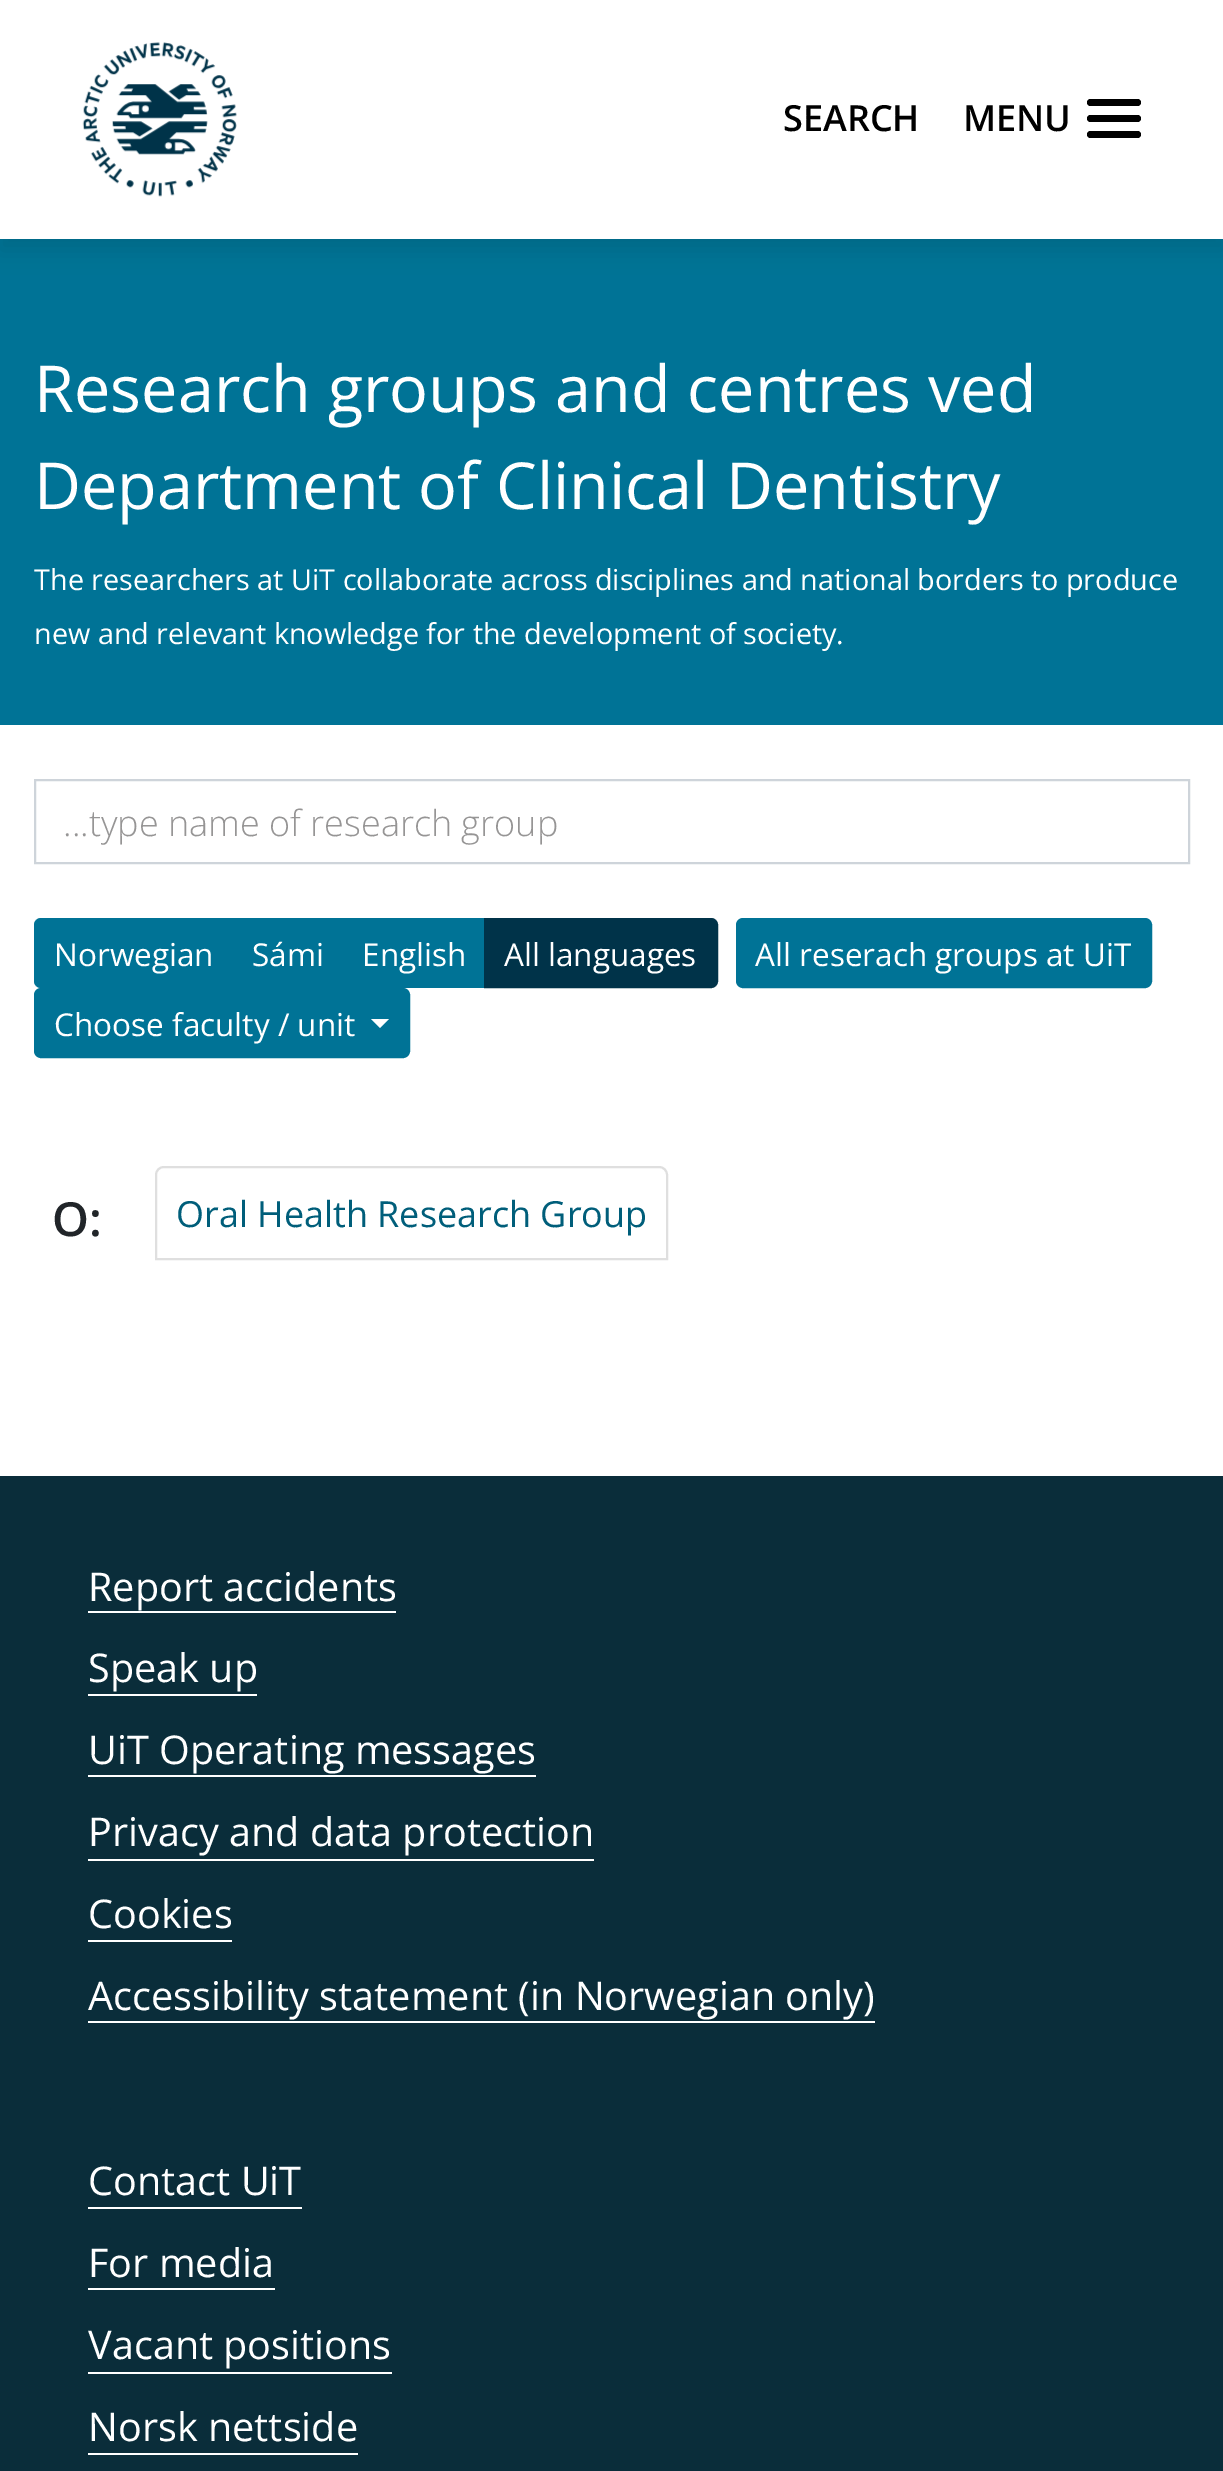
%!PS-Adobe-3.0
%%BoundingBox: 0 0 1223 2471
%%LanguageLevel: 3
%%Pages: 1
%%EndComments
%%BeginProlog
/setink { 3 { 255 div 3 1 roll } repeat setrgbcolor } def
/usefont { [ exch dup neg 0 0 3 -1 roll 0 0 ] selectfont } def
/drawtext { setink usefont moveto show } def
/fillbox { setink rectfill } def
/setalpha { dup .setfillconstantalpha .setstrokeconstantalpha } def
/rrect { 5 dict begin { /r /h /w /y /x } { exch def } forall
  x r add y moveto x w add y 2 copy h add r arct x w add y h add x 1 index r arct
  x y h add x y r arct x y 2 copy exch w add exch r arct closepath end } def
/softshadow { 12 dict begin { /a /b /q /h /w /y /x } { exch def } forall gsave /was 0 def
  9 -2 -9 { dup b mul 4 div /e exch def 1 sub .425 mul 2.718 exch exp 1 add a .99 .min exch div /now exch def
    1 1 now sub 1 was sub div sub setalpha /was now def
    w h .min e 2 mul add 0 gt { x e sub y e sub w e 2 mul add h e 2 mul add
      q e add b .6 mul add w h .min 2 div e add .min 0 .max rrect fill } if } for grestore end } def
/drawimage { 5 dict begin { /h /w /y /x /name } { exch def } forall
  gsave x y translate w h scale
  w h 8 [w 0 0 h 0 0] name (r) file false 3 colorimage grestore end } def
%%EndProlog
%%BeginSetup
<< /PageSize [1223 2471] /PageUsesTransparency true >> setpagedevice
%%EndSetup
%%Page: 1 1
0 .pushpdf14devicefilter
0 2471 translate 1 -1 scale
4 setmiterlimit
0 0 1223 2471 255 255 255 fillbox
0 239 1223 486 0 115 150 fillbox
0 0 0 setink
0 11 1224 239 0 11 0.1 softshadow
0 0 1223 239 255 255 255 fillbox
(assets/img1.rgb) 82 42 155 155 drawimage
(SEARCH) 783 131 /OpenSans-SemiBold 36 0 0 0 drawtext
1087 99 54 7 3.5 rrect fill
(MENU) 963 131 /OpenSans-SemiBold 36 0 0 0 drawtext
1087 115 54 7 3.5 rrect fill
1087 131 54 7 3.5 rrect fill
(Research groups and centres ved) 34 412 /OpenSans-Regular 64.75 255 255 255 drawtext
(Department of Clinical Dentistry) 34 509 /OpenSans-Regular 64.75 255 255 255 drawtext
(The researchers at UiT collaborate across disciplines and national borders to produce) 34 590 /OpenSans-Regular 28.8 255 255 255 drawtext
(new and relevant knowledge for the development of society.) 34 644 /OpenSans-Regular 28.8 255 255 255 drawtext
206 212 218 setink
2 setlinewidth
35 780 1154 83 rectstroke
(...type name of research group) 63 836 /OpenSans-Light 36 150 149 149 drawtext
0 115 150 setink
41 919 moveto 233 919 lineto 233 987 lineto 41 987 lineto 37.5 987 35 984.5 35 981 curveto 35 925 lineto 35 921.5 37.5 919 41 919 curveto closepath gsave fill grestore
stroke
(Norwegian) 54 966 /OpenSans-Regular 31.5 255 255 255 drawtext
234 918 250 70 0 115 150 fillbox
(Sámi) 252 966 /OpenSans-Regular 31.5 255 255 255 drawtext
(English) 362 966 /OpenSans-Regular 31.5 255 255 255 drawtext
0 51 73 setink
485 919 moveto 711 919 lineto 714.5 919 717 921.5 717 925 curveto 717 981 lineto 717 984.5 714.5 987 711 987 curveto 485 987 lineto closepath gsave fill grestore
stroke
(All languages) 504 966 /OpenSans-Regular 31.5 255 255 255 drawtext
0 115 150 setink
737 919 414 68 6 rrect gsave fill grestore
stroke
(All reserach groups at UiT) 755 966 /OpenSans-Regular 31.5 255 255 255 drawtext
0 115 150 setink
35 989 374 68 6 rrect gsave fill grestore
stroke
(Choose faculty / unit) 54 1036 /OpenSans-Regular 31.5 255 255 255 drawtext
371 1019 moveto 389 1019 lineto 380 1028 lineto closepath fill
(O:) 52 1236 /OpenSans-SemiBold 47 33 37 41 drawtext
223 223 223 setink
164 1167 moveto 659 1167 lineto 663.5 1167 667 1170.5 667 1175 curveto 667 1259 lineto 156 1259 lineto 156 1175 lineto 156 1170.5 159.5 1167 164 1167 curveto closepath stroke
(Oral Health Research Group) 176 1227 /OpenSans-Regular 36 0 94 122 drawtext
0 1476 1223 995 10 45 58 fillbox
(Report accidents) 88 1601 /OpenSans-Regular 39.6 255 255 255 drawtext
88 1611 308 2 255 255 255 fillbox
(Speak up) 88 1682 /OpenSans-Regular 39.6 255 255 255 drawtext
88 1694 169 2 255 255 255 fillbox
(UiT Operating messages) 88 1764 /OpenSans-Regular 39.6 255 255 255 drawtext
88 1775 448 2 255 255 255 fillbox
(Privacy and data protection) 88 1846 /OpenSans-Regular 39.6 255 255 255 drawtext
88 1859 506 2 255 255 255 fillbox
(Cookies) 88 1928 /OpenSans-Regular 39.6 255 255 255 drawtext
88 1940 144 2 255 255 255 fillbox
(Accessibility statement \(in Norwegian only\)) 88 2010 /OpenSans-Regular 39.6 255 255 255 drawtext
88 2021 787 2 255 255 255 fillbox
(Contact UiT) 88 2195 /OpenSans-Regular 39.6 255 255 255 drawtext
88 2207 214 2 255 255 255 fillbox
(For media) 88 2277 /OpenSans-Regular 39.6 255 255 255 drawtext
88 2288 187 2 255 255 255 fillbox
(Vacant positions) 88 2359 /OpenSans-Regular 39.6 255 255 255 drawtext
88 2372 304 2 255 255 255 fillbox
(Norsk nettside) 88 2441 /OpenSans-Regular 39.6 255 255 255 drawtext
88 2453 270 2 255 255 255 fillbox
.poppdf14devicefilter showpage
%%EOF
